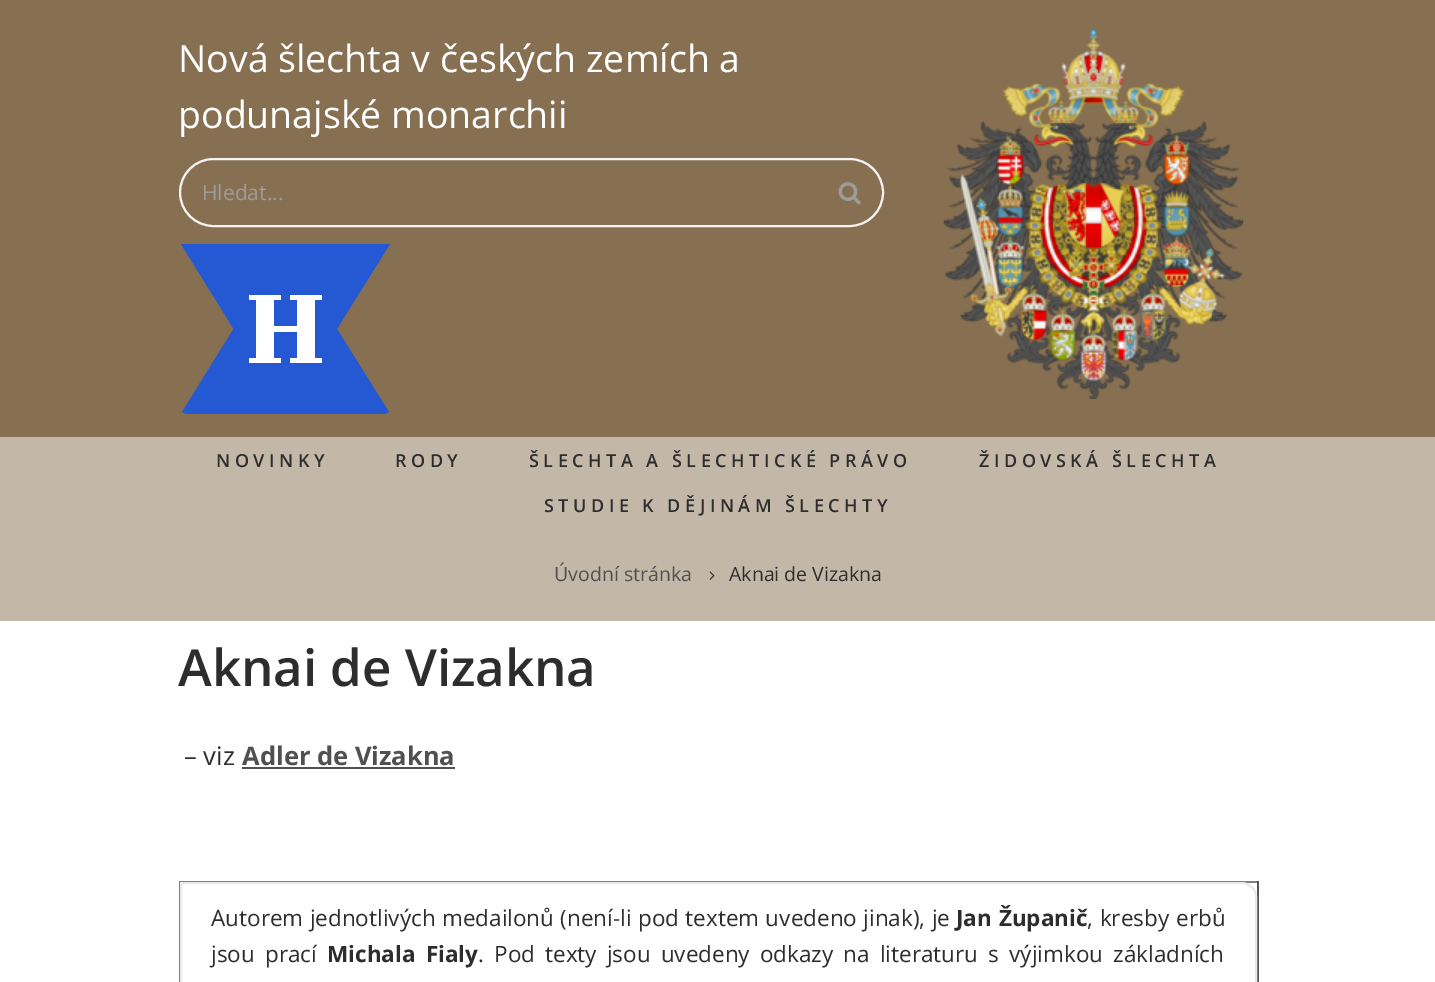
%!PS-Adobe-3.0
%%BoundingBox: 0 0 1435 982
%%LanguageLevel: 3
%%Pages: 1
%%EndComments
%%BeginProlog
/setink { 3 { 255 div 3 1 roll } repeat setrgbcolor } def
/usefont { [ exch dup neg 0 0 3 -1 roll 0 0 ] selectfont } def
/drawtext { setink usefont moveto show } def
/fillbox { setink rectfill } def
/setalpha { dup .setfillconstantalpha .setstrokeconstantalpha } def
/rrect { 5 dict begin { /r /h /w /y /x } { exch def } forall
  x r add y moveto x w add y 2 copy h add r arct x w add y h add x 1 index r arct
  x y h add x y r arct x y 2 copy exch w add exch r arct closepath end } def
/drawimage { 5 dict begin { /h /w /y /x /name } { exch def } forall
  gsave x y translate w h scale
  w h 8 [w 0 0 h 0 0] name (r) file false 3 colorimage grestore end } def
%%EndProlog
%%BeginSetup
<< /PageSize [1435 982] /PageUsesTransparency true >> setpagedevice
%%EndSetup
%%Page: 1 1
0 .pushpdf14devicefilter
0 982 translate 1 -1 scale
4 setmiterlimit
0 0 1435 982 255 255 255 fillbox
0 0 1435 437 135 112 81 fillbox
(Nová šlechta v českých zemích a) 178 72 /OpenSans-Regular 37.5 255 255 255 drawtext
(podunajské monarchii) 178 128 /OpenSans-Regular 37.5 255 255 255 drawtext
244 244 244 setink
2 setlinewidth
180 159 703 67 33.5 rrect stroke
(Hledat...) 202 200 /OpenSans-Regular 21 156 156 156 drawtext
(assets/img1.rgb) 838 182 23 23 drawimage
36 89 211 setink
285 246 moveto 182 412 lineto 186 414 lineto 385 414 lineto 389 412 lineto closepath fill
285 412 moveto 181 244 lineto 390 244 lineto closepath eofill
249 295 32 5 255 255 255 fillbox
290 295 32 5 255 255 255 fillbox
268 326 32 6 255 255 255 fillbox
256 300 18 58 255 255 255 fillbox
297 300 18 58 255 255 255 fillbox
249 358 32 5 255 255 255 fillbox
290 358 32 5 255 255 255 fillbox
(assets/img2.rgb) 943 30 301 369 drawimage
0.5 setalpha
0 437 1435 90 135 112 81 fillbox
/OpenSans-SemiBold 18 usefont
1 setalpha
45 45 45 setink
216 467 moveto 4.5 0 (NOVINKY) ashow
395 467 moveto 4.5 0 (RODY) ashow
529 467 moveto 4.5 0 (ŠLECHTA A ŠLECHTICKÉ PRÁVO) ashow
979 467 moveto 4.5 0 (ŽIDOVSKÁ ŠLECHTA) ashow
544 512 moveto 4.5 0 (STUDIE K DĚJINÁM ŠLECHTY) ashow
0 527 1435 94 195 184 168 fillbox
(Úvodní stránka) 554 581 /OpenSans-Regular 19.5 80 80 80 drawtext
(assets/img3.rgb) 709 571 6 9 drawimage
(Aknai de Vizakna) 729 581 /OpenSans-Regular 19.5 45 45 45 drawtext
(Aknai de Vizakna) 178 686 /OpenSans-SemiBold 51 45 45 45 drawtext
(– viz) 184 765 /OpenSans-Regular 25.5 45 45 45 drawtext
(Adler de Vizakna) 242 765 /OpenSans-Bold 25.5 80 80 80 drawtext
242 767 213 2 80 80 80 fillbox
179 881 1080 2 128 128 128 fillbox
1257 881 2 101 85 85 85 fillbox
179 881 2 101 128 128 128 fillbox
255 255 255 setink
181 883 moveto 1242 883 lineto 1249.5 883 1256 889.5 1256 897 curveto 1256 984 lineto 1256 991.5 1249.5 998 1242 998 curveto 195 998 lineto 187.5 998 181 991.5 181 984 curveto closepath gsave fill grestore
234 234 234 setink
stroke
/OpenSans-Regular 22.5 usefont
45 45 45 setink
211 926 moveto 0.5 0 32 (Autorem jednotlivých medailonů \(není-li pod textem uvedeno jinak\), je) widthshow
/OpenSans-Bold 22.5 usefont
956 926 moveto 1 0 32 (Jan Županič) widthshow
/OpenSans-Regular 22.5 usefont
1087 926 moveto 1 0 32 (, kresby erbů) widthshow
211 962 moveto 4.25 0 32 (jsou prací) widthshow
/OpenSans-Bold 22.5 usefont
327 962 moveto 4.25 0 32 (Michala Fialy) widthshow
/OpenSans-Regular 22.5 usefont
478 962 moveto 4.25 0 32 (. Pod texty jsou uvedeny odkazy na literaturu s výjimkou základních) widthshow
.poppdf14devicefilter showpage
%%EOF
